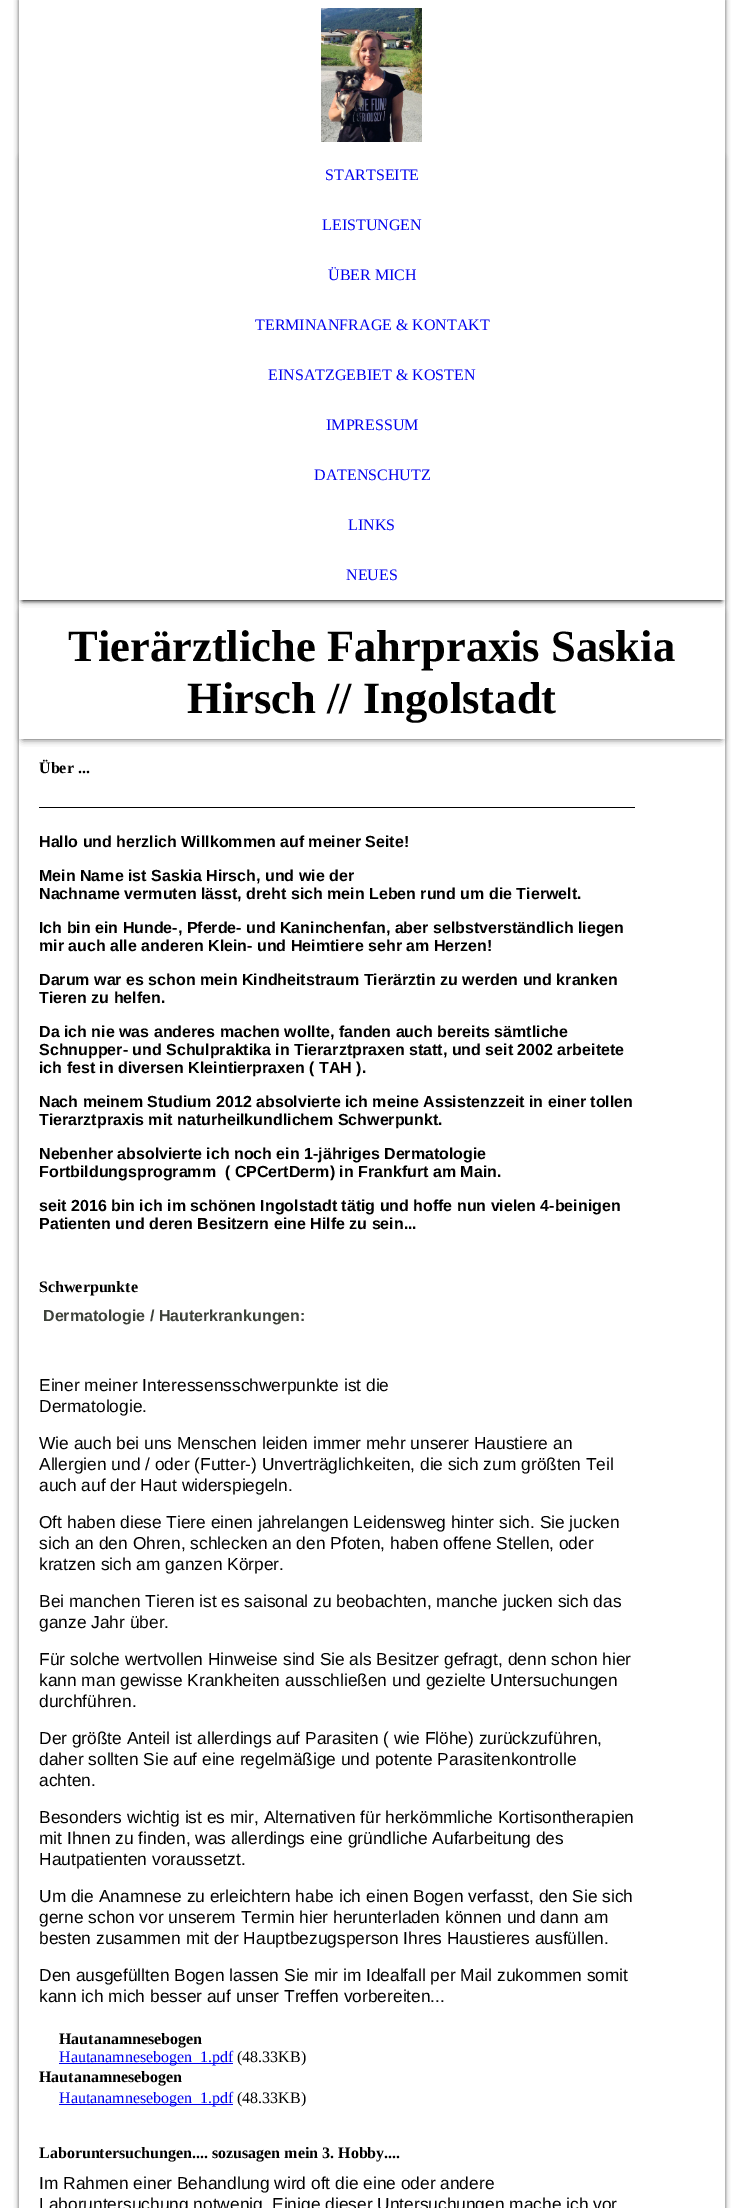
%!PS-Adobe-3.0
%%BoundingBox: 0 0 744 2208
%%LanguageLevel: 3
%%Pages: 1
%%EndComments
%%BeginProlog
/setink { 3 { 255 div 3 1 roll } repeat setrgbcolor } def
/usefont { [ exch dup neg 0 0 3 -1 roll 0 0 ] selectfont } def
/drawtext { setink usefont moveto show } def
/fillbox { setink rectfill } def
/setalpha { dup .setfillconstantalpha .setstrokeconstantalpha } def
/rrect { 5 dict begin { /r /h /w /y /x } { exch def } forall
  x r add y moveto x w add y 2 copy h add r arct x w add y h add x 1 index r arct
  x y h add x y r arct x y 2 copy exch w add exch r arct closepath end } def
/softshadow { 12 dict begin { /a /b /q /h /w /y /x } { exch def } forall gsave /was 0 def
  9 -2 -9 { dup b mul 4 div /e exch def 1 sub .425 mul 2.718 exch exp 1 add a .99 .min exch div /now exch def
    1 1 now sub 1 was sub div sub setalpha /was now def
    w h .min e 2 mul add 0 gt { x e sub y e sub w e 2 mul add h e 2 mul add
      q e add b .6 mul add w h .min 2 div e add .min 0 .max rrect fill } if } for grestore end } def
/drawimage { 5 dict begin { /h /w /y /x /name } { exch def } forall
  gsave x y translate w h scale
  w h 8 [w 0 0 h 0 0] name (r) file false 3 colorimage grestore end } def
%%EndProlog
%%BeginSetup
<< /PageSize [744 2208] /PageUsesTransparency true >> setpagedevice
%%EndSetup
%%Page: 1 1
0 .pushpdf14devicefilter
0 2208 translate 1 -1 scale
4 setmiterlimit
0 0 744 2208 255 255 255 fillbox
gsave
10 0 moveto 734 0 lineto 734 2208 lineto 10 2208 lineto closepath 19 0 moveto 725 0 lineto 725 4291 lineto 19 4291 lineto closepath eoclip newpath
20 20 20 setink
19 0 706 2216 0 2.5 0.7 softshadow
grestore
(assets/img1.rgb) 321 8 101 134 drawimage
gsave
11 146 moveto 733 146 lineto 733 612 lineto 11 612 lineto closepath 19 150 moveto 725 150 lineto 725 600 lineto 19 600 lineto closepath eoclip newpath
68 68 68 setink
23 158 698 442 0 3.5 1 softshadow
grestore
(STARTSEITE) 325 180 /LiberationSerif-Regular 16 0 0 238 drawtext
(LEISTUNGEN) 322 230 /LiberationSerif-Regular 16 0 0 238 drawtext
(ÜBER MICH) 328 280 /LiberationSerif-Regular 16 0 0 238 drawtext
(TERMINANFRAGE & KONTAKT) 255 330 /LiberationSerif-Regular 16 0 0 238 drawtext
(EINSATZGEBIET & KOSTEN) 268 380 /LiberationSerif-Regular 16 0 0 238 drawtext
(IMPRESSUM) 326 430 /LiberationSerif-Regular 16 0 0 238 drawtext
(DATENSCHUTZ) 314 480 /LiberationSerif-Regular 16 0 0 238 drawtext
(LINKS) 348 530 /LiberationSerif-Regular 16 0 0 238 drawtext
gsave
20 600 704 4 rectclip
0 0 0 setink
23 558 698 42 0 2 1 softshadow
grestore
(NEUES) 346 580 /LiberationSerif-Regular 16 0 0 238 drawtext
gsave
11 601 moveto 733 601 lineto 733 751 lineto 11 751 lineto closepath 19 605 moveto 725 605 lineto 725 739 lineto 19 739 lineto closepath eoclip newpath
68 68 68 setink
23 613 698 126 0 3.5 1 softshadow
grestore
(Tierärztliche Fahrpraxis Saskia) 68 661 /LiberationSerif-Bold 44.6 0 0 0 drawtext
(Hirsch // Ingolstadt) 187 713 /LiberationSerif-Bold 44.6 0 0 0 drawtext
(Über ...) 39 773 /LiberationSerif-Bold 16 0 0 0 drawtext
39 807 596 1 0 0 0 fillbox
(Hallo und herzlich Willkommen auf meiner Seite!) 39 847 /LiberationSans-Bold 16 0 0 0 drawtext
(Mein Name ist Saskia Hirsch, und wie der) 39 881 /LiberationSans-Bold 16 0 0 0 drawtext
(Nachname vermuten lässt, dreht sich mein Leben rund um die Tierwelt.) 39 899 /LiberationSans-Bold 16 0 0 0 drawtext
(Ich bin ein Hunde-, Pferde- und Kaninchenfan, aber selbstverständlich liegen) 39 933 /LiberationSans-Bold 16 0 0 0 drawtext
(mir auch alle anderen Klein- und Heimtiere sehr am Herzen!) 39 951 /LiberationSans-Bold 16 0 0 0 drawtext
(Darum war es schon mein Kindheitstraum Tierärztin zu werden und kranken) 39 985 /LiberationSans-Bold 16 0 0 0 drawtext
(Tieren zu helfen.) 39 1003 /LiberationSans-Bold 16 0 0 0 drawtext
(Da ich nie was anderes machen wollte, fanden auch bereits sämtliche) 39 1037 /LiberationSans-Bold 16 0 0 0 drawtext
(Schnupper- und Schulpraktika in Tierarztpraxen statt, und seit 2002 arbeitete) 39 1055 /LiberationSans-Bold 16 0 0 0 drawtext
(ich fest in diversen Kleintierpraxen \( TAH \).) 39 1073 /LiberationSans-Bold 16 0 0 0 drawtext
(Nach meinem Studium 2012 absolvierte ich meine Assistenzzeit in einer tollen) 39 1107 /LiberationSans-Bold 16 0 0 0 drawtext
(Tierarztpraxis mit naturheilkundlichem Schwerpunkt.) 39 1125 /LiberationSans-Bold 16 0 0 0 drawtext
(Nebenher absolvierte ich noch ein 1-jähriges Dermatologie) 39 1159 /LiberationSans-Bold 16 0 0 0 drawtext
(Fortbildungsprogramm  \( CPCertDerm\) in Frankfurt am Main.) 39 1177 /LiberationSans-Bold 16 0 0 0 drawtext
(seit 2016 bin ich im schönen Ingolstadt tätig und hoffe nun vielen 4-beinigen) 39 1211 /LiberationSans-Bold 16 0 0 0 drawtext
(Patienten und deren Besitzern eine Hilfe zu sein...) 39 1229 /LiberationSans-Bold 16 0 0 0 drawtext
(Schwerpunkte) 39 1292 /LiberationSerif-Bold 16 0 0 0 drawtext
(Dermatologie / Hauterkrankungen:) 43 1321 /LiberationSans-Bold 16 62 66 58 drawtext
(Einer meiner Interessensschwerpunkte ist die) 39 1391 /LiberationSans-Regular 17.35 0 0 0 drawtext
(Dermatologie.) 39 1412 /LiberationSans-Regular 17.35 0 0 0 drawtext
(Wie auch bei uns Menschen leiden immer mehr unserer Haustiere an) 39 1449 /LiberationSans-Regular 17.35 0 0 0 drawtext
(Allergien und / oder \(Futter-\) Unverträglichkeiten, die sich zum größten Teil) 39 1470 /LiberationSans-Regular 17.35 0 0 0 drawtext
(auch auf der Haut widerspiegeln.) 39 1491 /LiberationSans-Regular 17.35 0 0 0 drawtext
(Oft haben diese Tiere einen jahrelangen Leidensweg hinter sich. Sie jucken) 39 1528 /LiberationSans-Regular 17.35 0 0 0 drawtext
(sich an den Ohren, schlecken an den Pfoten, haben offene Stellen, oder) 39 1549 /LiberationSans-Regular 17.35 0 0 0 drawtext
(kratzen sich am ganzen Körper.) 39 1570 /LiberationSans-Regular 17.35 0 0 0 drawtext
(Bei manchen Tieren ist es saisonal zu beobachten, manche jucken sich das) 39 1607 /LiberationSans-Regular 17.35 0 0 0 drawtext
(ganze Jahr über.) 39 1628 /LiberationSans-Regular 17.35 0 0 0 drawtext
(Für solche wertvollen Hinweise sind Sie als Besitzer gefragt, denn schon hier) 39 1665 /LiberationSans-Regular 17.35 0 0 0 drawtext
(kann man gewisse Krankheiten ausschließen und gezielte Untersuchungen) 39 1686 /LiberationSans-Regular 17.35 0 0 0 drawtext
(durchführen.) 39 1707 /LiberationSans-Regular 17.35 0 0 0 drawtext
(Der größte Anteil ist allerdings auf Parasiten \( wie Flöhe\) zurückzuführen,) 39 1744 /LiberationSans-Regular 17.35 0 0 0 drawtext
(daher sollten Sie auf eine regelmäßige und potente Parasitenkontrolle) 39 1765 /LiberationSans-Regular 17.35 0 0 0 drawtext
(achten.) 39 1786 /LiberationSans-Regular 17.35 0 0 0 drawtext
(Besonders wichtig ist es mir, Alternativen für herkömmliche Kortisontherapien) 39 1823 /LiberationSans-Regular 17.35 0 0 0 drawtext
(mit Ihnen zu finden, was allerdings eine gründliche Aufarbeitung des) 39 1844 /LiberationSans-Regular 17.35 0 0 0 drawtext
(Hautpatienten voraussetzt.) 39 1865 /LiberationSans-Regular 17.35 0 0 0 drawtext
(Um die Anamnese zu erleichtern habe ich einen Bogen verfasst, den Sie sich) 39 1902 /LiberationSans-Regular 17.35 0 0 0 drawtext
(gerne schon vor unserem Termin hier herunterladen können und dann am) 39 1923 /LiberationSans-Regular 17.35 0 0 0 drawtext
(besten zusammen mit der Hauptbezugsperson Ihres Haustieres ausfüllen.) 39 1944 /LiberationSans-Regular 17.35 0 0 0 drawtext
(Den ausgefüllten Bogen lassen Sie mir im Idealfall per Mail zukommen somit) 39 1981 /LiberationSans-Regular 17.35 0 0 0 drawtext
(kann ich mich besser auf unser Treffen vorbereiten...) 39 2002 /LiberationSans-Regular 17.35 0 0 0 drawtext
(Hautanamnesebogen) 59 2044 /LiberationSerif-Bold 16 0 0 0 drawtext
59 2063 174 1 0 0 238 fillbox
(Hautanamnesebogen_1.pdf) 59 2062 /LiberationSerif-Regular 16 0 0 238 drawtext
(\(48.33KB\)) 237 2062 /LiberationSerif-Regular 16 0 0 0 drawtext
(Hautanamnesebogen) 39 2082 /LiberationSerif-Bold 16 0 0 0 drawtext
59 2104 174 1 0 0 238 fillbox
(Hautanamnesebogen_1.pdf) 59 2103 /LiberationSerif-Regular 16 0 0 238 drawtext
(\(48.33KB\)) 237 2103 /LiberationSerif-Regular 16 0 0 0 drawtext
(Laboruntersuchungen.... sozusagen mein 3. Hobby....) 39 2158 /LiberationSerif-Bold 16 0 0 0 drawtext
(Im Rahmen einer Behandlung wird oft die eine oder andere) 39 2189 /LiberationSans-Regular 17.35 0 0 0 drawtext
(Laboruntersuchung notwenig) 39 2210 /LiberationSans-Regular 17.35 0 0 0 drawtext
(Einige dieser Untersuchungen mache ich vor) 272 2210 /LiberationSans-Regular 17.35 0 0 0 drawtext
.poppdf14devicefilter showpage
%%EOF
